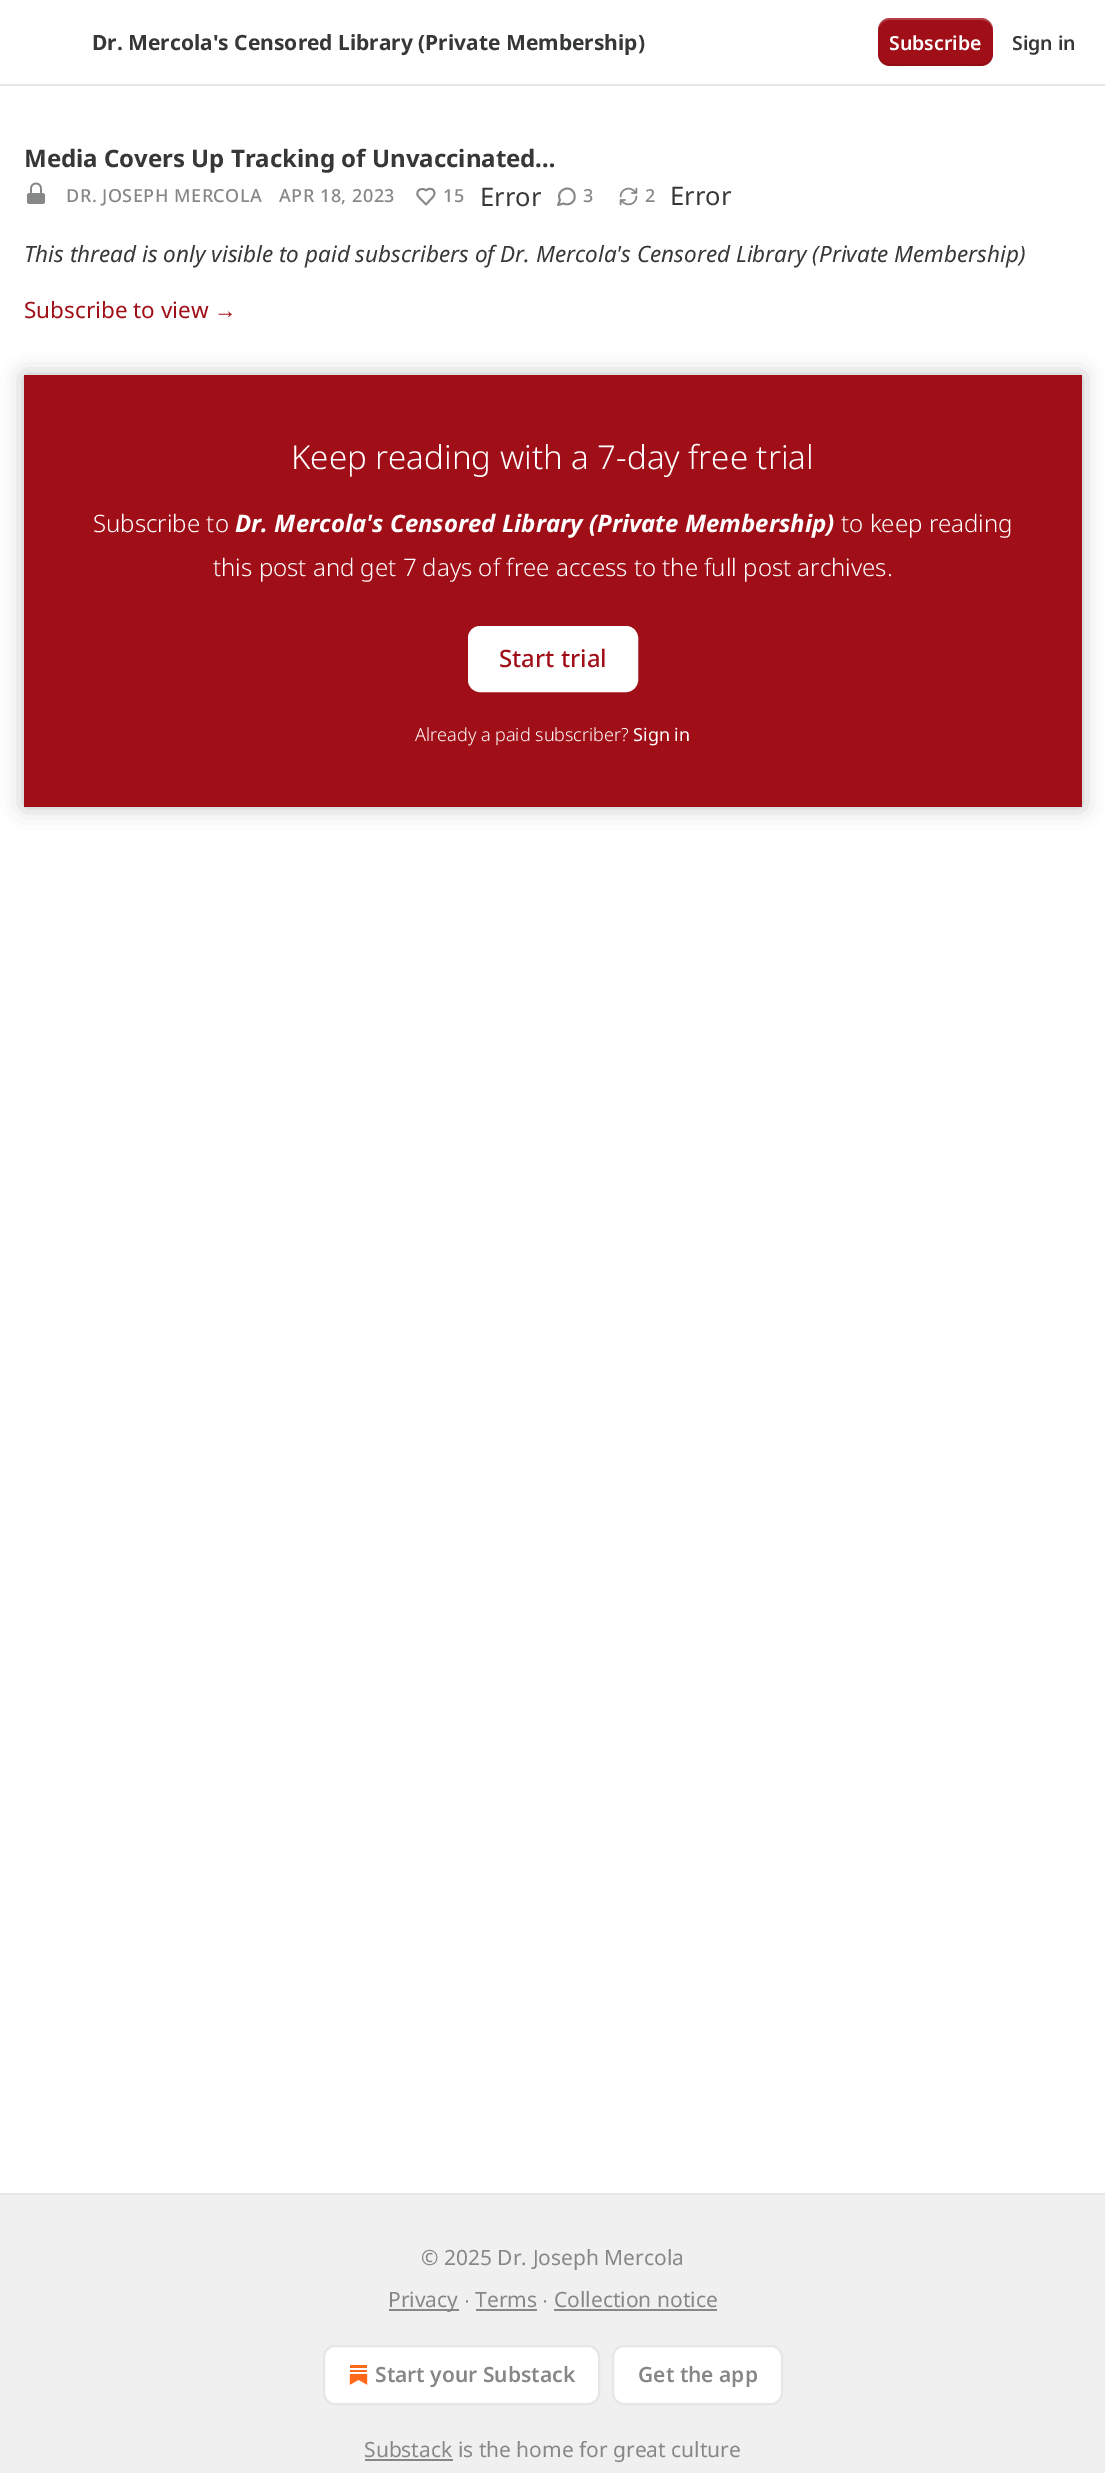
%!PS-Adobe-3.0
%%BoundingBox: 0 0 1105 2473
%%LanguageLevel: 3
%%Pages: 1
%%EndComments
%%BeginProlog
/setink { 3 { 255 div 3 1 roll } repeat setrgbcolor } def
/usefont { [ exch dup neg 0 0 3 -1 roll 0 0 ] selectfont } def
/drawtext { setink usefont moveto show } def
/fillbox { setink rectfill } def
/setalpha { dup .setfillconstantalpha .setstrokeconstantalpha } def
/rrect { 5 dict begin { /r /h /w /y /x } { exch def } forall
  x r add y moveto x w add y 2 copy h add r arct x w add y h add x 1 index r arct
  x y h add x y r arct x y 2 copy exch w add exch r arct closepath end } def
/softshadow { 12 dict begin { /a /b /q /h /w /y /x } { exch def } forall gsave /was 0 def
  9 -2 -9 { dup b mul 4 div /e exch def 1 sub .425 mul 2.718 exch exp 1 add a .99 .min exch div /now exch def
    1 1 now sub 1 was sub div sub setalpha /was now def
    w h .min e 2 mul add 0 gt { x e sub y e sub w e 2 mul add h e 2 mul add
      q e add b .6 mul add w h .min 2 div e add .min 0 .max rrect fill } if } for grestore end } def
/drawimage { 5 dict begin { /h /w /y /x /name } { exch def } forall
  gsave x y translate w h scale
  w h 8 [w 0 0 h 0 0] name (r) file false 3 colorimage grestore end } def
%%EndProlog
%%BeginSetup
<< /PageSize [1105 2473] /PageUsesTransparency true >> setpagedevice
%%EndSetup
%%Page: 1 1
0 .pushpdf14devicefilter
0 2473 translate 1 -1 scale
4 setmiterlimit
0 0 1105 2473 255 255 255 fillbox
0 84 1105 2 230 230 230 fillbox
(Dr. Mercola's Censored Library \(Private Membership\)) 92 50 /NotoSans-Bold 21 54 55 55 drawtext
160 14 24 setink
878 18 115 48 12 rrect fill
0.1 setalpha
0 0 0 setink
878 52 moveto 878 69 892 66 905 66 curveto 966 66 lineto 979 66 993 69 993 52 curveto 993 59 988 64 981 64 curveto 890 64 lineto 883 64 878 59 878 52 curveto closepath fill
0.2 setalpha
255 255 255 setink
890 20 moveto 981 20 lineto 988 20 993 25 993 32 curveto 993 15 979 18 966 18 curveto 905 18 lineto 892 18 878 15 878 32 curveto 878 25 883 20 890 20 curveto closepath fill
1 setalpha
(Subscribe) 889 50 /NotoSans-SemiBold 19.5 255 255 255 drawtext
(Sign in) 1012 50 /NotoSans-SemiBold 19.5 54 55 55 drawtext
(Media Covers Up Tracking of Unvaccinated…) 24 167 /NotoSans-Bold 24 54 55 55 drawtext
(assets/img1.rgb) 27 182 18 22 drawimage
/NotoSans-Medium 18 usefont
134 135 135 setink
66 202 moveto 0.5 0 (DR. JOSEPH MERCOLA) ashow
279 202 moveto 0.5 0 (APR 18, 2023) ashow
1.8 setlinewidth
1 setlinecap
1 setlinejoin
432 198 moveto 438.5 192 431 185.5 426 190.5 curveto 422.5 187 416 189.5 417.5 195 curveto 418.5 197.5 424 202 426 204.5 curveto closepath stroke
443 202 moveto 0.5 0 (15) ashow
(Error) 480 206 /NotoSans-Regular 25.5 54 55 55 drawtext
134 135 135 setink
563.5 203.5 moveto 567.5 205.5 572 204 574 200 curveto 575 198 575 195.5 574 193 curveto 570 183.5 555 190.5 560 200 curveto 558 205 lineto closepath stroke
/NotoSans-Medium 18 usefont
583 202 moveto 0.5 0 (3) ashow
(assets/img2.rgb) 619 187 19 19 drawimage
645 202 moveto 0.5 0 (2) ashow
(Error) 670 205 /NotoSans-Regular 25.5 54 55 55 drawtext
(This thread is only visible to paid subscribers of Dr. Mercola's Censored Library \(Private Membership\)) 24 262 /NotoSans-Italic 22.5 54 55 55 drawtext
(Subscribe to view) 24 318 /NotoSans-Regular 22.5 160 14 24 drawtext
(→) 214 318 /LiberationSans-Regular 22.5 160 14 24 drawtext
24 375 1058 432 160 14 24 fillbox
255 255 255 setink
469 627 168 64 11 rrect gsave fill grestore
2 setlinewidth
0 setlinecap
0 setlinejoin
stroke
gsave
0 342 moveto 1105 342 lineto 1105 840 lineto 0 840 lineto closepath 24 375 moveto 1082 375 lineto 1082 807 lineto 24 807 lineto closepath eoclip newpath
0 0 0 setink
24 375 1058 432 0 10.5 0.25 softshadow
grestore
(Keep reading with a 7-day free trial) 291 469 /NotoSans-Light 33 255 255 255 drawtext
(Subscribe to) 93 532 /NotoSans-Light 24 255 255 255 drawtext
(Dr. Mercola's Censored Library \(Private Membership\)) 235 532 /NotoSans-BoldItalic 24 255 255 255 drawtext
(to keep reading) 841 532 /NotoSans-Light 24 255 255 255 drawtext
(this post and get 7 days of free access to the full post archives.) 213 576 /NotoSans-Light 24 255 255 255 drawtext
(Start trial) 499 667 /NotoSans-Medium 24 160 14 24 drawtext
(Already a paid subscriber?) 415 741 /NotoSans-Light 18 255 255 255 drawtext
(Sign in) 633 741 /NotoSans-Regular 18 255 255 255 drawtext
0 2195 1105 278 240 240 240 fillbox
0 2193 1105 2 230 230 230 fillbox
(© 2025 Dr. Joseph Mercola) 421 2265 /NotoSans-Regular 21 134 135 135 drawtext
389 2309 70 2 134 135 135 fillbox
(Privacy) 388 2307 /NotoSans-Regular 21 134 135 135 drawtext
(∙) 464 2307 /LiberationSans-Regular 21 134 135 135 drawtext
(Terms) 475 2307 /NotoSans-Regular 21 134 135 135 drawtext
476 2309 61 2 134 135 135 fillbox
(∙) 542 2307 /LiberationSans-Regular 21 134 135 135 drawtext
(Collection notice) 554 2307 /NotoSans-Regular 21 134 135 135 drawtext
554 2309 163 2 134 135 135 fillbox
255 255 255 setink
324 2346 275 58 11 rrect gsave fill grestore
230 230 230 setink
stroke
(assets/img3.rgb) 349 2365 19 20 drawimage
(Start your Substack) 375 2382 /NotoSans-SemiBold 21 134 135 135 drawtext
255 255 255 setink
613 2346 169 58 11 rrect gsave fill grestore
230 230 230 setink
stroke
(Get the app) 638 2382 /NotoSans-SemiBold 21 134 135 135 drawtext
365 2459 88 2 134 135 135 fillbox
(Substack is the home for great culture) 364 2457 /NotoSans-Regular 21 134 135 135 drawtext
.poppdf14devicefilter showpage
%%EOF
